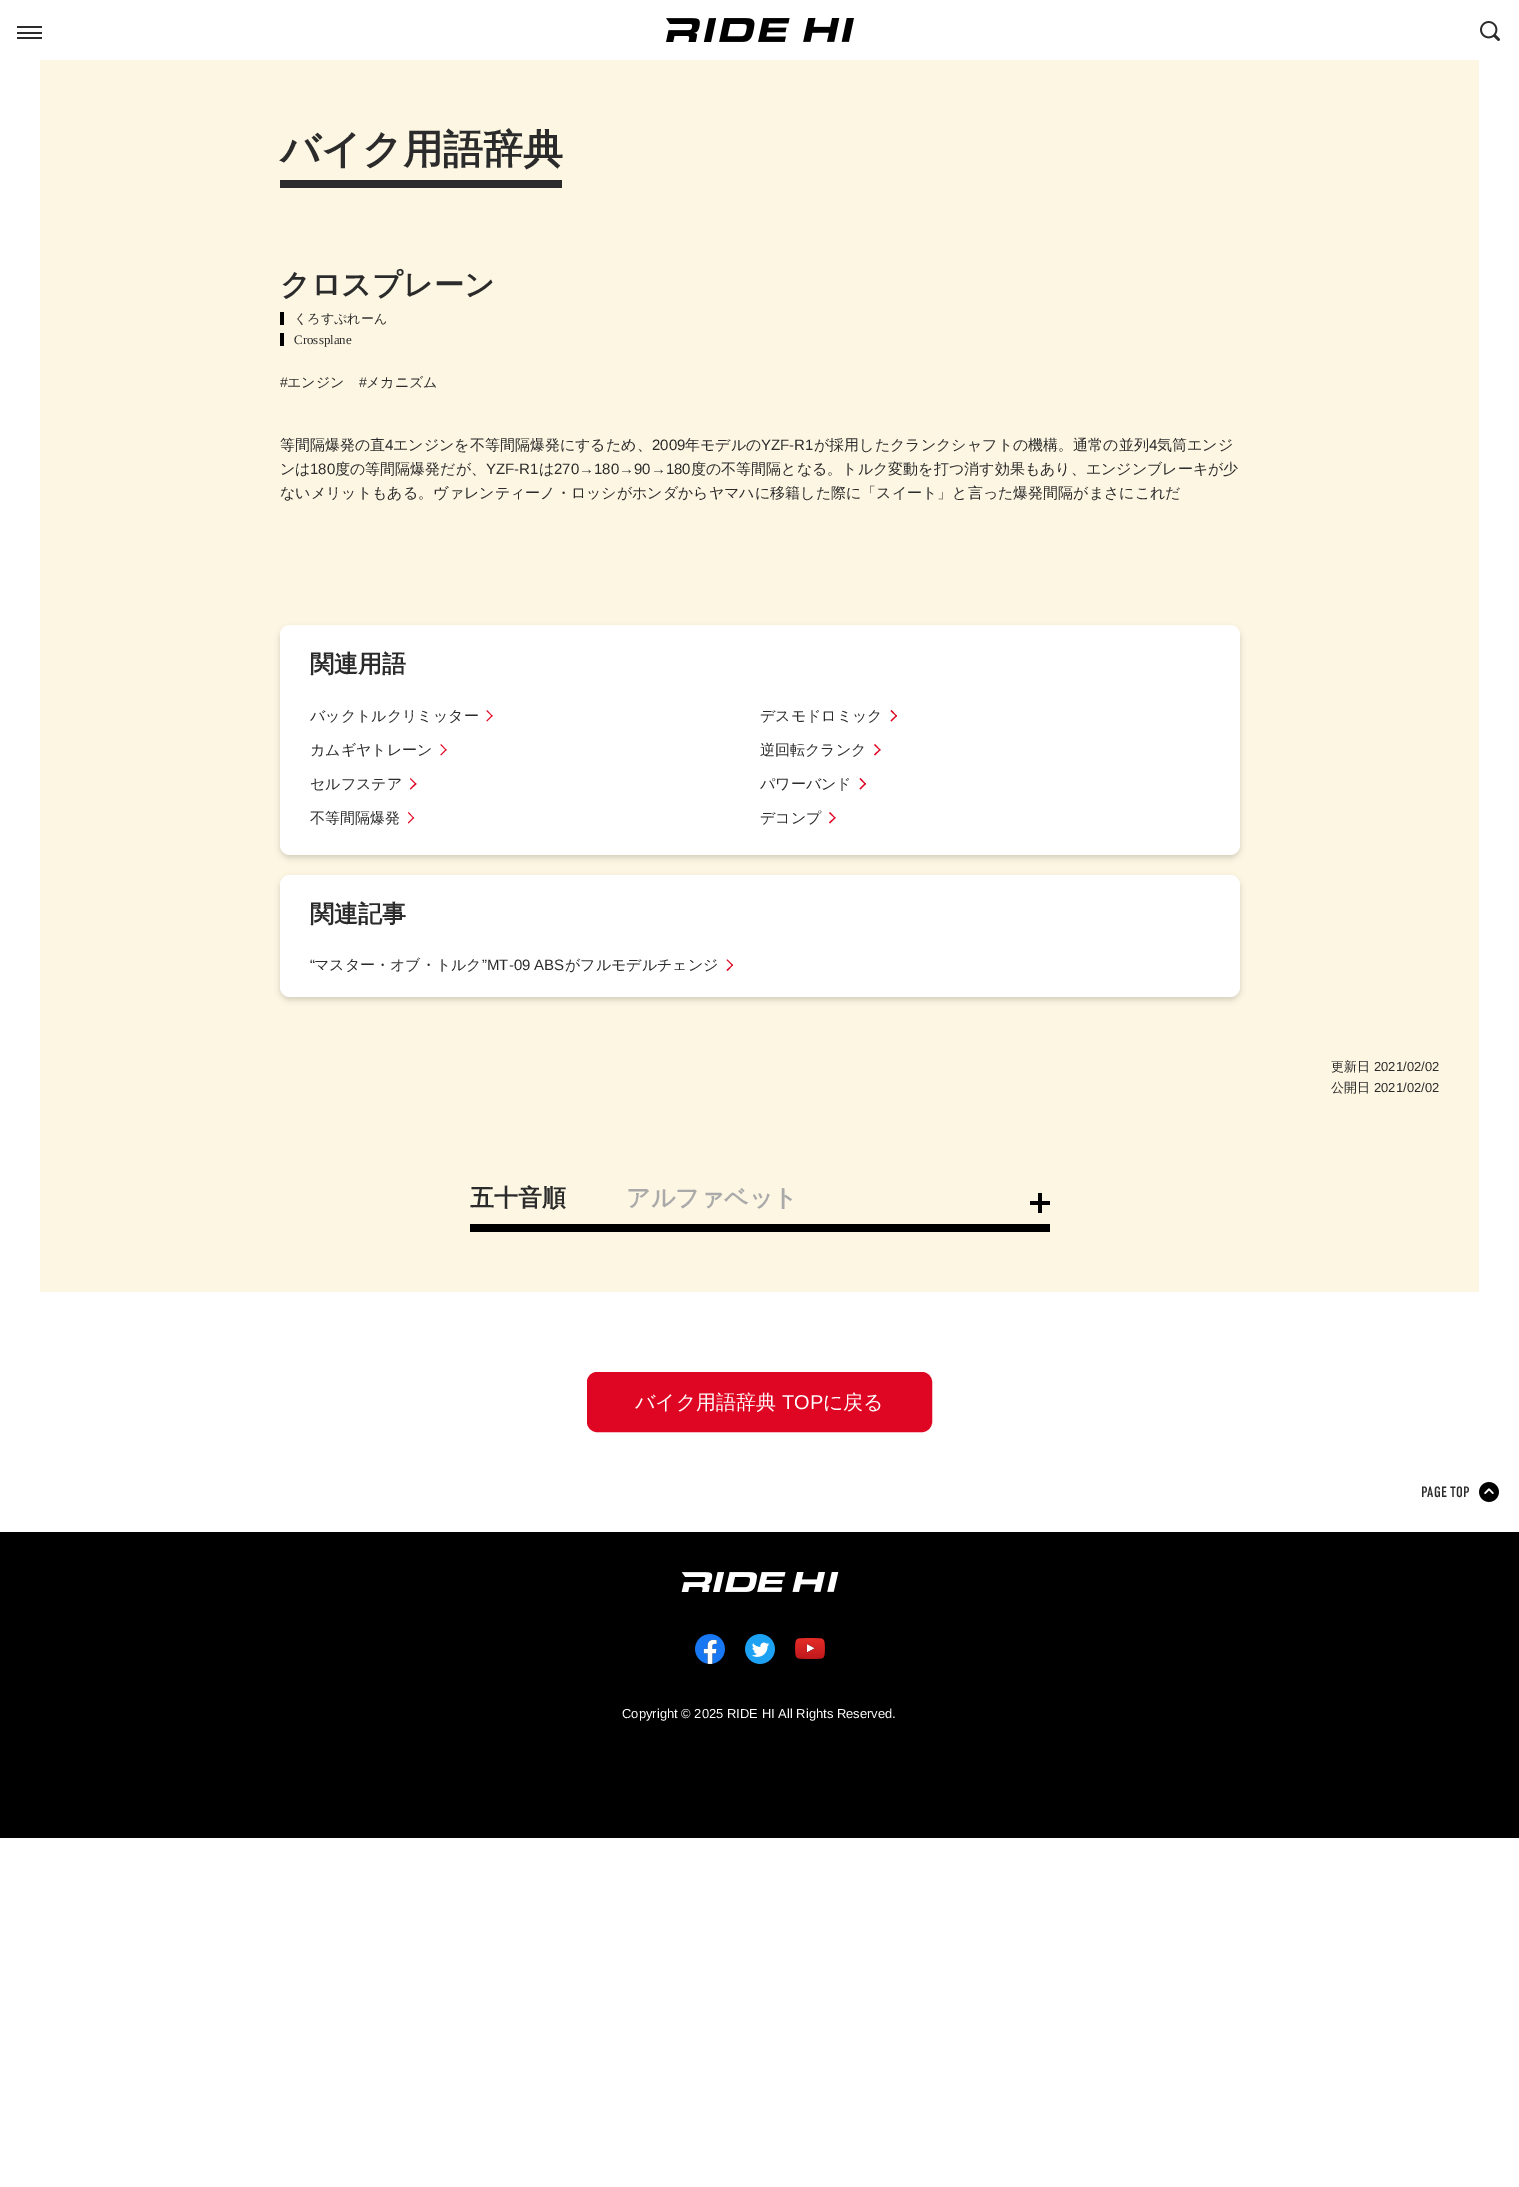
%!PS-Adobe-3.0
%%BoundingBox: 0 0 1519 2187
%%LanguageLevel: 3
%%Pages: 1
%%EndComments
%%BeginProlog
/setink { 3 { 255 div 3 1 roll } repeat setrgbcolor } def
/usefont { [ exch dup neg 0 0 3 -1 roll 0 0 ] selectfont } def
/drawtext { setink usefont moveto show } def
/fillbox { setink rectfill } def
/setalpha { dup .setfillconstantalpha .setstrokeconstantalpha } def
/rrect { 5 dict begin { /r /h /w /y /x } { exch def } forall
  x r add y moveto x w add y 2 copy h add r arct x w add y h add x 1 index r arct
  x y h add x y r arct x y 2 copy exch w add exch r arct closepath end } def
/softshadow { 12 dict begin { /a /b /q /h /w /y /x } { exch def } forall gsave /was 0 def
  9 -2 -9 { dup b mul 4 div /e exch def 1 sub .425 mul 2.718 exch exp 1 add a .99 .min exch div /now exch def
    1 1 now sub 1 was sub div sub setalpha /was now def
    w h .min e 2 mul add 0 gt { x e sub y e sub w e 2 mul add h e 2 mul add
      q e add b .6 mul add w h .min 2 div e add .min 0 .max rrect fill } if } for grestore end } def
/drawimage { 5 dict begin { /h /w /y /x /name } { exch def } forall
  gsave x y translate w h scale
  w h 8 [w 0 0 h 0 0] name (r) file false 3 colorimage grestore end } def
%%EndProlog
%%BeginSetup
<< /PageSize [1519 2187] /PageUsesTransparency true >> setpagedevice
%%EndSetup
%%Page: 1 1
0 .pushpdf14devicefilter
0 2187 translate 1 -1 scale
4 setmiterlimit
0 0 1519 2187 255 255 255 fillbox
17 26 25 2 43 43 43 fillbox
17 32 25 2 43 43 43 fillbox
17 37 25 2 43 43 43 fillbox
(assets/img1.rgb) 666 18 188 24 drawimage
(assets/img2.rgb) 1480 21 20 20 drawimage
40 60 1439 1232 253 246 227 fillbox
280 180 282 8 43 43 43 fillbox
(バイク用語辞典) 280 163 /WenQuanYiZenHei-Bold 40 43 43 43 drawtext
(クロスプレーン) 280 295 /WenQuanYiZenHei-Bold 30 43 43 43 drawtext
280 312 4 13 0 0 0 fillbox
(くろすぷれーん) 294 323 /WenQuanYiZenHei-Medium 13 43 43 43 drawtext
280 333 4 13 0 0 0 fillbox
(Crossplane) 294 344 /LiberationSerif-Regular 13 43 43 43 drawtext
(#) 280 387 /LiberationSans-Regular 14 43 43 43 drawtext
(エンジン) 287 387 /WenQuanYiZenHei-Medium 14 43 43 43 drawtext
(#) 359 387 /LiberationSans-Regular 14 43 43 43 drawtext
(メカニズム) 366 387 /WenQuanYiZenHei-Medium 14 43 43 43 drawtext
(等間隔爆発の直) 280 450 /WenQuanYiZenHei-Medium 15 43 43 43 drawtext
(4) 385 450 /LiberationSans-Regular 15 43 43 43 drawtext
(エンジンを不等間隔爆発にするため、) 393 450 /WenQuanYiZenHei-Medium 15 43 43 43 drawtext
(2009) 652 450 /LiberationSans-Regular 15 43 43 43 drawtext
(年モデルの) 685 450 /WenQuanYiZenHei-Medium 15 43 43 43 drawtext
(YZF-R1) 761 450 /LiberationSans-Regular 15 43 43 43 drawtext
(が採用したクランクシャフトの機構。通常の並列) 814 450 /WenQuanYiZenHei-Medium 15 43 43 43 drawtext
(4) 1149 450 /LiberationSans-Regular 15 43 43 43 drawtext
(気筒エンジ) 1157 450 /WenQuanYiZenHei-Medium 15 43 43 43 drawtext
(ンは) 280 474 /WenQuanYiZenHei-Medium 15 43 43 43 drawtext
(180) 310 474 /LiberationSans-Regular 15 43 43 43 drawtext
(度の等間隔爆発だが、) 335 474 /WenQuanYiZenHei-Medium 15 43 43 43 drawtext
(YZF-R1) 486 474 /LiberationSans-Regular 15 43 43 43 drawtext
(は) 539 474 /WenQuanYiZenHei-Medium 15 43 43 43 drawtext
(270→180→90→180) 554 474 /LiberationSans-Regular 15 43 43 43 drawtext
(度の不等間隔となる。トルク変動を打つ消す効果もあり、エンジンブレーキが少) 691 474 /WenQuanYiZenHei-Medium 15 43 43 43 drawtext
(ないメリットもある。ヴァレンティーノ・ロッシがホンダからヤマハに移籍した際に「スイート」と言った爆発間隔がまさにこれだ) 280 498 /WenQuanYiZenHei-Medium 15 43 43 43 drawtext
0 0 0 setink
280 628 960 230 10 3 0.16 softshadow
255 255 255 setink
280 625 960 230 10 rrect fill
(関連用語) 310 672 /WenQuanYiZenHei-Bold 24 43 43 43 drawtext
(バックトルクリミッター) 310 721 /WenQuanYiZenHei-Medium 15 43 43 43 drawtext
223 6 35 setink
487 710 moveto 492.5 716 lineto 492 716.5 lineto 486.5 711 lineto closepath fill
492 715 moveto 492.5 716 lineto 487 721.5 lineto 486.5 720.5 lineto closepath fill
(デスモドロミック) 760 721 /WenQuanYiZenHei-Medium 15 43 43 43 drawtext
223 6 35 setink
891.5 710 moveto 897 716 lineto 896.5 716.5 lineto 890.5 711 lineto closepath fill
896.5 715 moveto 897 716 lineto 891.5 721.5 lineto 890.5 720.5 lineto closepath fill
(カムギヤトレーン) 310 755 /WenQuanYiZenHei-Medium 15 43 43 43 drawtext
223 6 35 setink
441 744 moveto 446.5 750 lineto 446 750.5 lineto 440.5 745 lineto closepath fill
446 749 moveto 446.5 750 lineto 441 755.5 lineto 440.5 754.5 lineto closepath fill
(逆回転クランク) 760 755 /WenQuanYiZenHei-Medium 15 43 43 43 drawtext
223 6 35 setink
875 744 moveto 880.5 750 lineto 880 750.5 lineto 874 745 lineto closepath fill
880 749 moveto 880.5 750 lineto 875 755.5 lineto 874 754.5 lineto closepath fill
(セルフステア) 310 789 /WenQuanYiZenHei-Medium 15 43 43 43 drawtext
223 6 35 setink
410.5 778 moveto 416.5 784 lineto 415.5 784.5 lineto 410 779 lineto closepath fill
415.5 783 moveto 416.5 784 lineto 410.5 789.5 lineto 410 788.5 lineto closepath fill
(パワーバンド) 760 789 /WenQuanYiZenHei-Medium 15 43 43 43 drawtext
223 6 35 setink
860.5 778 moveto 866 784 lineto 865 784.5 lineto 859.5 779 lineto closepath fill
865 783 moveto 866 784 lineto 860.5 789.5 lineto 859.5 788.5 lineto closepath fill
(不等間隔爆発) 310 823 /WenQuanYiZenHei-Medium 15 43 43 43 drawtext
223 6 35 setink
408.5 812 moveto 414 818 lineto 413.5 818.5 lineto 408 813 lineto closepath fill
413.5 817 moveto 414 818 lineto 408.5 823.5 lineto 408 822.5 lineto closepath fill
(デコンプ) 760 823 /WenQuanYiZenHei-Medium 15 43 43 43 drawtext
223 6 35 setink
830 812 moveto 835.5 818 lineto 835 818.5 lineto 829 813 lineto closepath fill
835 817 moveto 835.5 818 lineto 830 823.5 lineto 829 822.5 lineto closepath fill
0 0 0 setink
280 878 960 122 10 3 0.16 softshadow
255 255 255 setink
280 875 960 122 10 rrect fill
(関連記事) 310 922 /WenQuanYiZenHei-Bold 24 43 43 43 drawtext
(“) 310 970 /LiberationSans-Regular 15 43 43 43 drawtext
(マスター・オブ・トルク) 314 970 /WenQuanYiZenHei-Medium 15 43 43 43 drawtext
(”MT-09 ABS) 482 970 /LiberationSans-Regular 15 43 43 43 drawtext
(がフルモデルチェンジ) 565 970 /WenQuanYiZenHei-Medium 15 43 43 43 drawtext
223 6 35 setink
727.5 959.5 moveto 733 965 lineto 732.5 966 lineto 726.5 960 lineto closepath fill
732.5 964.5 moveto 733 965 lineto 727.5 971 lineto 726.5 970 lineto closepath fill
(更新日) 1331 1071 /WenQuanYiZenHei-Medium 13 43 43 43 drawtext
(2021/02/02) 1374 1071 /LiberationSans-Regular 13 43 43 43 drawtext
(公開日) 1331 1092 /WenQuanYiZenHei-Medium 13 43 43 43 drawtext
(2021/02/02) 1374 1092 /LiberationSans-Regular 13 43 43 43 drawtext
(五十音順) 470 1206 /WenQuanYiZenHei-Bold 24 43 43 43 drawtext
(アルファベット) 626 1206 /WenQuanYiZenHei-Bold 24 170 170 170 drawtext
1030 1201 20 4 0 0 0 fillbox
1038 1193 4 20 0 0 0 fillbox
470 1224 580 8 0 0 0 fillbox
223 6 35 setink
588 1373 343 58 9 rrect gsave fill grestore
2 setlinewidth
stroke
(バイク用語辞典) 635 1409 /WenQuanYiZenHei-Medium 20 255 255 255 drawtext
(TOP) 782 1409 /LiberationSans-Regular 20 255 255 255 drawtext
(に戻る) 823 1409 /WenQuanYiZenHei-Medium 20 255 255 255 drawtext
0 1532 1519 306 0 0 0 fillbox
(PAGE TOP) 1421 1497 /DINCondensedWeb-Regular 15 43 43 43 drawtext
(assets/img3.rgb) 1479 1482 20 20 drawimage
(assets/img4.rgb) 681 1572 158 20 drawimage
(assets/img5.rgb) 695 1634 30 30 drawimage
(assets/img6.rgb) 745 1634 30 30 drawimage
(assets/img7.rgb) 795 1638 30 21 drawimage
(Copyright © 2025 RIDE HI All Rights Reserved.) 622 1718 /LiberationSans-Regular 13 255 255 255 drawtext
.poppdf14devicefilter showpage
%%EOF
